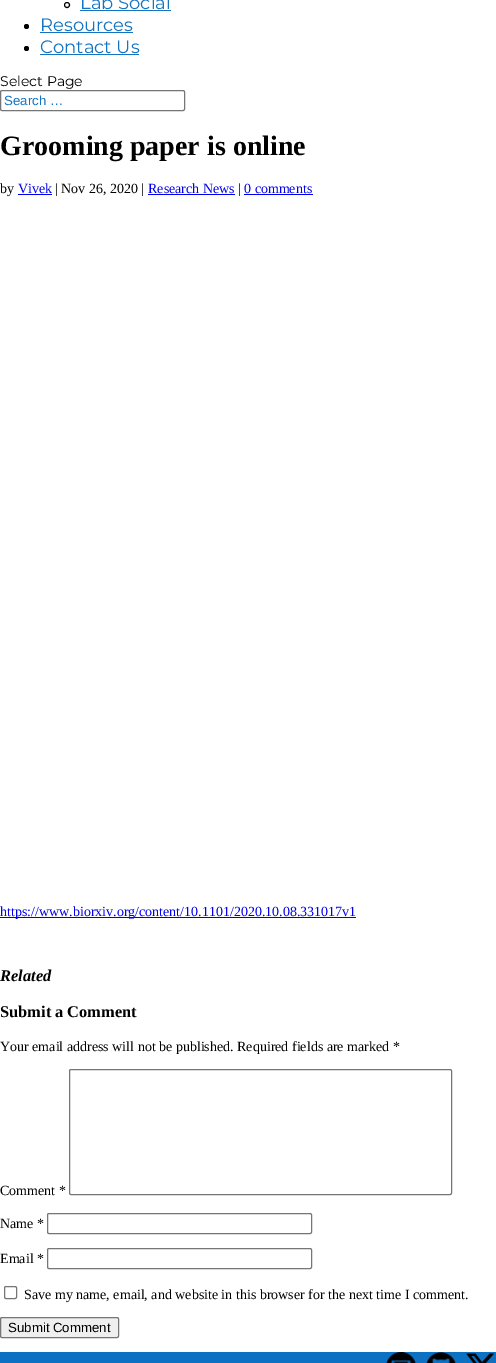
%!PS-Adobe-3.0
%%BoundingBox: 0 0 496 1363
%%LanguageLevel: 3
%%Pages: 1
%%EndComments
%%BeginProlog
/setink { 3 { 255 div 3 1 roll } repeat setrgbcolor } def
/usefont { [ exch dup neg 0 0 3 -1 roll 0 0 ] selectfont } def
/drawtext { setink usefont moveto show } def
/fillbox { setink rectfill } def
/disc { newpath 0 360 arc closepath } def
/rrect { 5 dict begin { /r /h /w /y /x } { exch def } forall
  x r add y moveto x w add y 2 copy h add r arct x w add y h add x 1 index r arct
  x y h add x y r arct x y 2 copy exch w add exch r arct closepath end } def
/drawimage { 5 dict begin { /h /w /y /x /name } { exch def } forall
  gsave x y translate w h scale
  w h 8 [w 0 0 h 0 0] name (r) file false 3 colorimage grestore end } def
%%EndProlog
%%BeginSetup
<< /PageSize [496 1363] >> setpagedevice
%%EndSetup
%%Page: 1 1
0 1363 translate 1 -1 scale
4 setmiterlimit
0 0 496 1363 255 255 255 fillbox
0 0 0 setink
67 5 2.5 disc stroke
(Lab Social) 80 9 /Montserrat-Regular 18 21 116 193 drawtext
80 10 91 1 21 116 193 fillbox
0 0 0 setink
26.5 26.5 2.5 disc fill
(Resources) 40 31 /Montserrat-Regular 18 21 116 193 drawtext
40 32 93 1 21 116 193 fillbox
0 0 0 setink
26.5 48.5 2.5 disc fill
(Contact Us) 40 53 /Montserrat-Regular 18 21 116 193 drawtext
40 54 99 1 21 116 193 fillbox
(Select Page) 0 86 /Montserrat-Regular 14 0 0 0 drawtext
118 118 118 setink
0.5 90.5 184 20 1.5 rrect stroke
(Search …) 4 105 /LiberationSans-Regular 13.25 21 116 193 drawtext
(Grooming paper is online) 0 155 /LiberationSerif-Bold 28 0 0 0 drawtext
(by) 0 193 /LiberationSerif-Regular 14 0 0 0 drawtext
(Vivek) 18 193 /LiberationSerif-Regular 14 0 0 238 drawtext
18 194 34 1 0 0 238 fillbox
(| Nov 26, 2020 |) 55 193 /LiberationSerif-Regular 14 0 0 0 drawtext
(Research News) 148 193 /LiberationSerif-Regular 14 0 0 238 drawtext
148 194 87 1 0 0 238 fillbox
(|) 238 193 /LiberationSerif-Regular 14 0 0 0 drawtext
(0 comments) 244 193 /LiberationSerif-Regular 14 0 0 238 drawtext
244 194 69 1 0 0 238 fillbox
0 917 356 1 0 0 238 fillbox
(https://www.biorxiv.org/content/10.1101/2020.10.08.331017v1) 0 916 /LiberationSerif-Regular 14 0 0 238 drawtext
(Related) 0 981 /LiberationSerif-BoldItalic 16.4 0 0 0 drawtext
(Submit a Comment) 0 1017 /LiberationSerif-Bold 16.4 0 0 0 drawtext
(Your email address will not be published. Required fields are marked *) 0 1051 /LiberationSerif-Regular 14 0 0 0 drawtext
(Comment *) 0 1195 /LiberationSerif-Regular 14 0 0 0 drawtext
118 118 118 setink
69.5 1069.5 382 125 1.5 rrect stroke
(Name *) 0 1228 /LiberationSerif-Regular 14 0 0 0 drawtext
118 118 118 setink
47.5 1213.5 264 20 1.5 rrect stroke
(Email *) 0 1263 /LiberationSerif-Regular 14 0 0 0 drawtext
118 118 118 setink
47.5 1248.5 264 20 1.5 rrect stroke
4.5 1286.5 12 12 1.5 rrect stroke
(Save my name, email, and website in this browser for the next time I comment.) 24 1299 /LiberationSerif-Regular 14 0 0 0 drawtext
239 239 239 setink
0.5 1317.5 118 20 1.5 rrect gsave fill grestore
118 118 118 setink
stroke
(Submit Comment) 8 1332 /LiberationSans-Regular 13.25 0 0 0 drawtext
0 1352 496 11 12 113 195 fillbox
(assets/img1.rgb) 386 1352 30 11 drawimage
(assets/img2.rgb) 426 1352 30 11 drawimage
(assets/img3.rgb) 466 1353 29 10 drawimage
showpage
%%EOF
